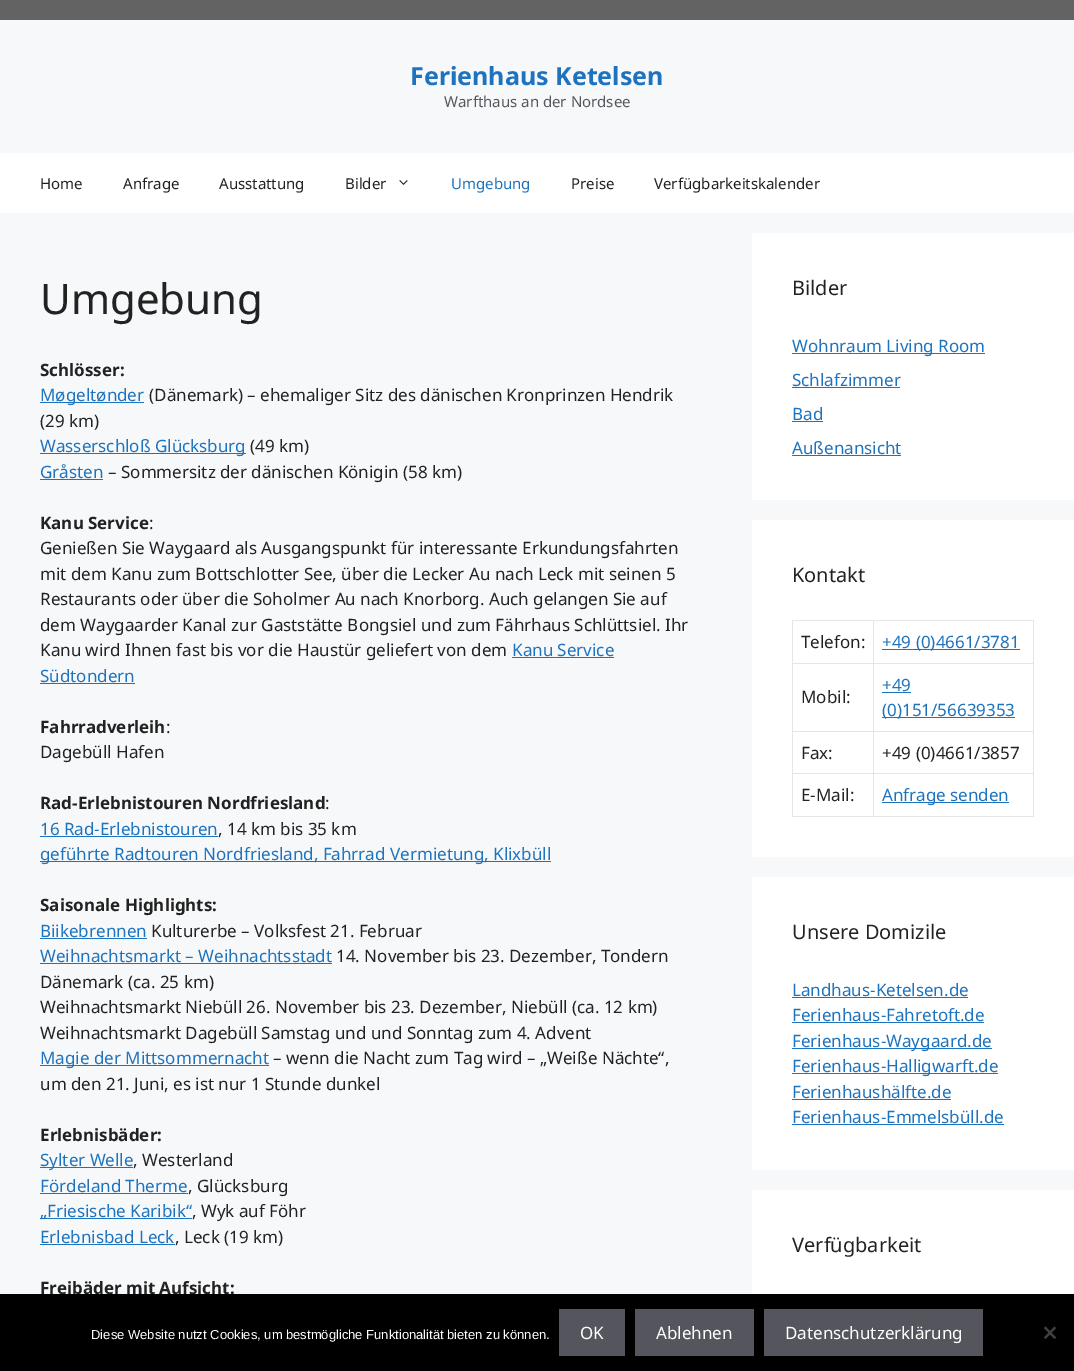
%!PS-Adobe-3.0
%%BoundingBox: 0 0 1074 1371
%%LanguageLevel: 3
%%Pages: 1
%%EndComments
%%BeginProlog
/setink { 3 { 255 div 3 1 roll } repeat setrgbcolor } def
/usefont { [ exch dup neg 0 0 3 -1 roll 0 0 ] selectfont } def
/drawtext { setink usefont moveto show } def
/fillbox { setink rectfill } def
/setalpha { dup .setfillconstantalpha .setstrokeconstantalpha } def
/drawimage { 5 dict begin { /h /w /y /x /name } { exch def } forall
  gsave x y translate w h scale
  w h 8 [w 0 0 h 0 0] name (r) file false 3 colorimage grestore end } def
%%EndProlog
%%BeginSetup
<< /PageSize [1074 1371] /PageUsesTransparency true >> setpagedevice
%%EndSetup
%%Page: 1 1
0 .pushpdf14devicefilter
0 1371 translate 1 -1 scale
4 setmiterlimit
0 0 1074 1371 247 248 249 fillbox
0 0 1074 20 99 99 99 fillbox
(Ferienhaus Ketelsen) 410 85 /NotoSans-Bold 25 30 115 190 drawtext
(Warfthaus an der Nordsee) 444 107 /NotoSans-Regular 15 87 87 96 drawtext
0 153 1074 60 255 255 255 fillbox
(Home) 40 189 /NotoSans-Regular 15 34 34 34 drawtext
(Anfrage) 123 189 /NotoSans-Regular 15 34 34 34 drawtext
(Ausstattung) 219 189 /NotoSans-Regular 15 34 34 34 drawtext
(Bilder) 345 189 /NotoSans-Regular 15 34 34 34 drawtext
(assets/img1.rgb) 399 180 9 5 drawimage
(Umgebung) 451 189 /NotoSans-Regular 15 30 115 190 drawtext
(Preise) 571 189 /NotoSans-Regular 15 34 34 34 drawtext
(Verfügbarkeitskalender) 654 189 /NotoSans-Regular 15 34 34 34 drawtext
(Umgebung) 40 314 /NotoSans-Regular 42 34 34 34 drawtext
(Schlösser:) 40 376 /NotoSans-Bold 17 34 34 34 drawtext
40 402 104 1 30 115 190 fillbox
(Møgeltønder) 40 401 /NotoSans-Regular 17 30 115 190 drawtext
(\(Dänemark\) – ehemaliger Sitz des dänischen Kronprinzen Hendrik) 149 401 /NotoSans-Regular 17 34 34 34 drawtext
(\(29 km\)) 40 427 /NotoSans-Regular 17 34 34 34 drawtext
40 453 206 1 30 115 190 fillbox
(Wasserschloß Glücksburg) 40 452 /NotoSans-Regular 17 30 115 190 drawtext
(\(49 km\)) 250 452 /NotoSans-Regular 17 34 34 34 drawtext
(Gråsten) 40 478 /NotoSans-Regular 17 30 115 190 drawtext
40 479 63 1 30 115 190 fillbox
(– Sommersitz der dänischen Königin \(58 km\)) 108 478 /NotoSans-Regular 17 34 34 34 drawtext
(Kanu Service) 40 529 /NotoSans-Bold 17 34 34 34 drawtext
(:) 149 529 /NotoSans-Regular 17 34 34 34 drawtext
(Genießen Sie Waygaard als Ausgangspunkt für interessante Erkundungsfahrten) 40 554 /NotoSans-Regular 17 34 34 34 drawtext
(mit dem Kanu zum Bottschlotter See, über die Lecker Au nach Leck mit seinen 5) 40 580 /NotoSans-Regular 17 34 34 34 drawtext
(Restaurants oder über die Soholmer Au nach Knorborg. Auch gelangen Sie auf) 40 605 /NotoSans-Regular 17 34 34 34 drawtext
(dem Waygaarder Kanal zur Gaststätte Bongsiel und zum Fährhaus Schlüttsiel. Ihr) 40 631 /NotoSans-Regular 17 34 34 34 drawtext
(Kanu wird Ihnen fast bis vor die Haustür geliefert von dem) 40 656 /NotoSans-Regular 17 34 34 34 drawtext
(Kanu Service) 512 656 /NotoSans-Regular 17 30 115 190 drawtext
512 657 102 1 30 115 190 fillbox
(Südtondern) 40 682 /NotoSans-Regular 17 30 115 190 drawtext
40 683 95 1 30 115 190 fillbox
(Fahrradverleih) 40 733 /NotoSans-Bold 17 34 34 34 drawtext
(:) 166 733 /NotoSans-Regular 17 34 34 34 drawtext
(Dagebüll Hafen) 40 758 /NotoSans-Regular 17 34 34 34 drawtext
(Rad-Erlebnistouren Nordfriesland) 40 809 /NotoSans-Bold 17 34 34 34 drawtext
(:) 325 809 /NotoSans-Regular 17 34 34 34 drawtext
(16 Rad-Erlebnistouren) 40 835 /NotoSans-Regular 17 30 115 190 drawtext
40 836 178 1 30 115 190 fillbox
(, 14 km bis 35 km) 218 835 /NotoSans-Regular 17 34 34 34 drawtext
40 861 511 1 30 115 190 fillbox
(geführte Radtouren Nordfriesland, Fahrrad Vermietung, Klixbüll) 40 860 /NotoSans-Regular 17 30 115 190 drawtext
(Saisonale Highlights:) 40 911 /NotoSans-Bold 17 34 34 34 drawtext
(Biikebrennen) 40 937 /NotoSans-Regular 17 30 115 190 drawtext
40 938 107 1 30 115 190 fillbox
(Kulturerbe – Volksfest 21. Februar) 151 937 /NotoSans-Regular 17 34 34 34 drawtext
(Weihnachtsmarkt – Weihnachtsstadt) 40 962 /NotoSans-Regular 17 30 115 190 drawtext
40 963 292 1 30 115 190 fillbox
(14. November bis 23. Dezember, Tondern) 336 962 /NotoSans-Regular 17 34 34 34 drawtext
(Dänemark \(ca. 25 km\)) 40 988 /NotoSans-Regular 17 34 34 34 drawtext
(Weihnachtsmarkt Niebüll 26. November bis 23. Dezember, Niebüll \(ca. 12 km\)) 40 1013 /NotoSans-Regular 17 34 34 34 drawtext
(Weihnachtsmarkt Dagebüll Samstag und und Sonntag zum 4. Advent) 40 1039 /NotoSans-Regular 17 34 34 34 drawtext
40 1065 229 1 30 115 190 fillbox
(Magie der Mittsommernacht) 40 1064 /NotoSans-Regular 17 30 115 190 drawtext
(– wenn die Nacht zum Tag wird – „Weiße Nächte“,) 273 1064 /NotoSans-Regular 17 34 34 34 drawtext
(um den 21. Juni, es ist nur 1 Stunde dunkel) 40 1090 /NotoSans-Regular 17 34 34 34 drawtext
(Erlebnisbäder:) 40 1141 /NotoSans-Bold 17 34 34 34 drawtext
40 1167 93 1 30 115 190 fillbox
(Sylter Welle) 40 1166 /NotoSans-Regular 17 30 115 190 drawtext
(, Westerland) 133 1166 /NotoSans-Regular 17 34 34 34 drawtext
(Fördeland Therme) 40 1192 /NotoSans-Regular 17 30 115 190 drawtext
40 1193 148 1 30 115 190 fillbox
(, Glücksburg) 188 1192 /NotoSans-Regular 17 34 34 34 drawtext
40 1218 152 1 30 115 190 fillbox
(„Friesische Karibik“) 40 1217 /NotoSans-Regular 17 30 115 190 drawtext
(, Wyk auf Föhr) 192 1217 /NotoSans-Regular 17 34 34 34 drawtext
(Erlebnisbad Leck) 40 1243 /NotoSans-Regular 17 30 115 190 drawtext
40 1244 135 1 30 115 190 fillbox
(, Leck \(19 km\)) 175 1243 /NotoSans-Regular 17 34 34 34 drawtext
(Freibäder mit Aufsicht:) 40 1294 /NotoSans-Bold 17 34 34 34 drawtext
752 233 322 267 255 255 255 fillbox
(Bilder) 792 295 /NotoSans-Regular 20 34 34 34 drawtext
792 353 193 1 30 115 190 fillbox
(Wohnraum Living Room) 792 352 /NotoSans-Regular 17 30 115 190 drawtext
(Schlafzimmer) 792 386 /NotoSans-Regular 17 30 115 190 drawtext
792 387 108 1 30 115 190 fillbox
(Bad) 792 420 /NotoSans-Regular 17 30 115 190 drawtext
792 421 31 1 30 115 190 fillbox
(Außenansicht) 792 454 /NotoSans-Regular 17 30 115 190 drawtext
792 455 109 1 30 115 190 fillbox
752 520 322 337 255 255 255 fillbox
(Kontakt) 792 582 /NotoSans-Regular 20 34 34 34 drawtext
230 230 230 setink
792 620 moveto 1034 620 lineto 1034 621 lineto 793 621 lineto closepath fill
0.1 setalpha
0 0 0 setink
792 817 moveto 792 620 lineto 793 621 lineto 793 817 lineto closepath fill
1 setalpha
230 230 230 setink
874 621 moveto 874 664 lineto 873 663 lineto 873 621 lineto closepath fill
0.1 setalpha
0 0 0 setink
874 664 moveto 793 664 lineto 793 663 lineto 873 663 lineto closepath fill
1 setalpha
(Telefon:) 801 648 /NotoSans-Regular 17 34 34 34 drawtext
230 230 230 setink
1034 621 moveto 1034 664 lineto 1033 663 lineto 1033 621 lineto closepath fill
0.1 setalpha
0 0 0 setink
1034 664 moveto 874 664 lineto 874 663 lineto 1033 663 lineto closepath fill
1 setalpha
882 649 138 1 30 115 190 fillbox
(+49 \(0\)4661/3781) 882 648 /NotoSans-Regular 17 30 115 190 drawtext
230 230 230 setink
874 664 moveto 874 732 lineto 873 731 lineto 873 664 lineto closepath fill
0.1 setalpha
0 0 0 setink
874 732 moveto 793 732 lineto 793 731 lineto 873 731 lineto closepath fill
1 setalpha
(Mobil:) 801 703 /NotoSans-Regular 17 34 34 34 drawtext
230 230 230 setink
1034 664 moveto 1034 732 lineto 1033 731 lineto 1033 664 lineto closepath fill
0.1 setalpha
0 0 0 setink
1034 732 moveto 874 732 lineto 874 731 lineto 1033 731 lineto closepath fill
1 setalpha
(+49) 882 691 /NotoSans-Regular 17 30 115 190 drawtext
882 692 29 1 30 115 190 fillbox
882 717 133 1 30 115 190 fillbox
(\(0\)151/56639353) 882 716 /NotoSans-Regular 17 30 115 190 drawtext
230 230 230 setink
874 732 moveto 874 774 lineto 873 773 lineto 873 732 lineto closepath fill
0.1 setalpha
0 0 0 setink
874 774 moveto 793 774 lineto 793 773 lineto 873 773 lineto closepath fill
1 setalpha
(Fax:) 801 759 /NotoSans-Regular 17 34 34 34 drawtext
230 230 230 setink
1034 732 moveto 1034 774 lineto 1033 773 lineto 1033 732 lineto closepath fill
0.1 setalpha
0 0 0 setink
1034 774 moveto 874 774 lineto 874 773 lineto 1033 773 lineto closepath fill
1 setalpha
(+49 \(0\)4661/3857) 882 759 /NotoSans-Regular 17 34 34 34 drawtext
230 230 230 setink
874 774 moveto 874 817 lineto 873 816 lineto 873 774 lineto closepath fill
0.1 setalpha
0 0 0 setink
874 817 moveto 793 817 lineto 793 816 lineto 873 816 lineto closepath fill
1 setalpha
(E-Mail:) 801 801 /NotoSans-Regular 17 34 34 34 drawtext
230 230 230 setink
1034 774 moveto 1034 817 lineto 1033 816 lineto 1033 774 lineto closepath fill
0.1 setalpha
0 0 0 setink
1034 817 moveto 874 817 lineto 874 816 lineto 1033 816 lineto closepath fill
1 setalpha
882 802 127 1 30 115 190 fillbox
(Anfrage senden) 882 801 /NotoSans-Regular 17 30 115 190 drawtext
752 877 322 293 255 255 255 fillbox
(Unsere Domizile) 792 939 /NotoSans-Regular 20 34 34 34 drawtext
(Landhaus-Ketelsen.de) 792 996 /NotoSans-Regular 17 30 115 190 drawtext
792 997 176 1 30 115 190 fillbox
(Ferienhaus-Fahretoft.de) 792 1021 /NotoSans-Regular 17 30 115 190 drawtext
792 1022 192 1 30 115 190 fillbox
792 1048 200 1 30 115 190 fillbox
(Ferienhaus-Waygaard.de) 792 1047 /NotoSans-Regular 17 30 115 190 drawtext
792 1073 206 1 30 115 190 fillbox
(Ferienhaus-Halligwarft.de) 792 1072 /NotoSans-Regular 17 30 115 190 drawtext
(Ferienhaushälfte.de) 792 1098 /NotoSans-Regular 17 30 115 190 drawtext
792 1099 159 1 30 115 190 fillbox
(Ferienhaus-Emmelsbüll.de) 792 1123 /NotoSans-Regular 17 30 115 190 drawtext
792 1124 212 1 30 115 190 fillbox
752 1190 322 104 255 255 255 fillbox
(Verfügbarkeit) 792 1252 /NotoSans-Regular 20 34 34 34 drawtext
0 1294 1074 77 0 0 0 fillbox
(Diese Website nutzt Cookies, um bestmögliche Funktionalität bieten zu können.) 91 1339 /LiberationSans-Regular 13 255 255 255 drawtext
559 1309 66 47 85 85 94 fillbox
(OK) 580 1339 /NotoSans-Regular 17 255 255 255 drawtext
635 1309 119 47 85 85 94 fillbox
(Ablehnen) 656 1339 /NotoSans-Regular 17 255 255 255 drawtext
764 1309 219 47 85 85 94 fillbox
(Datenschutzerklärung) 785 1339 /NotoSans-Regular 17 255 255 255 drawtext
64 64 64 setink
1054.5 1326.5 moveto 1056 1328 lineto 1045.5 1339 lineto 1044 1337.5 lineto closepath fill
1044 1328 moveto 1045.5 1326.5 lineto 1056 1337.5 lineto 1054.5 1339 lineto closepath fill
.poppdf14devicefilter showpage
%%EOF
